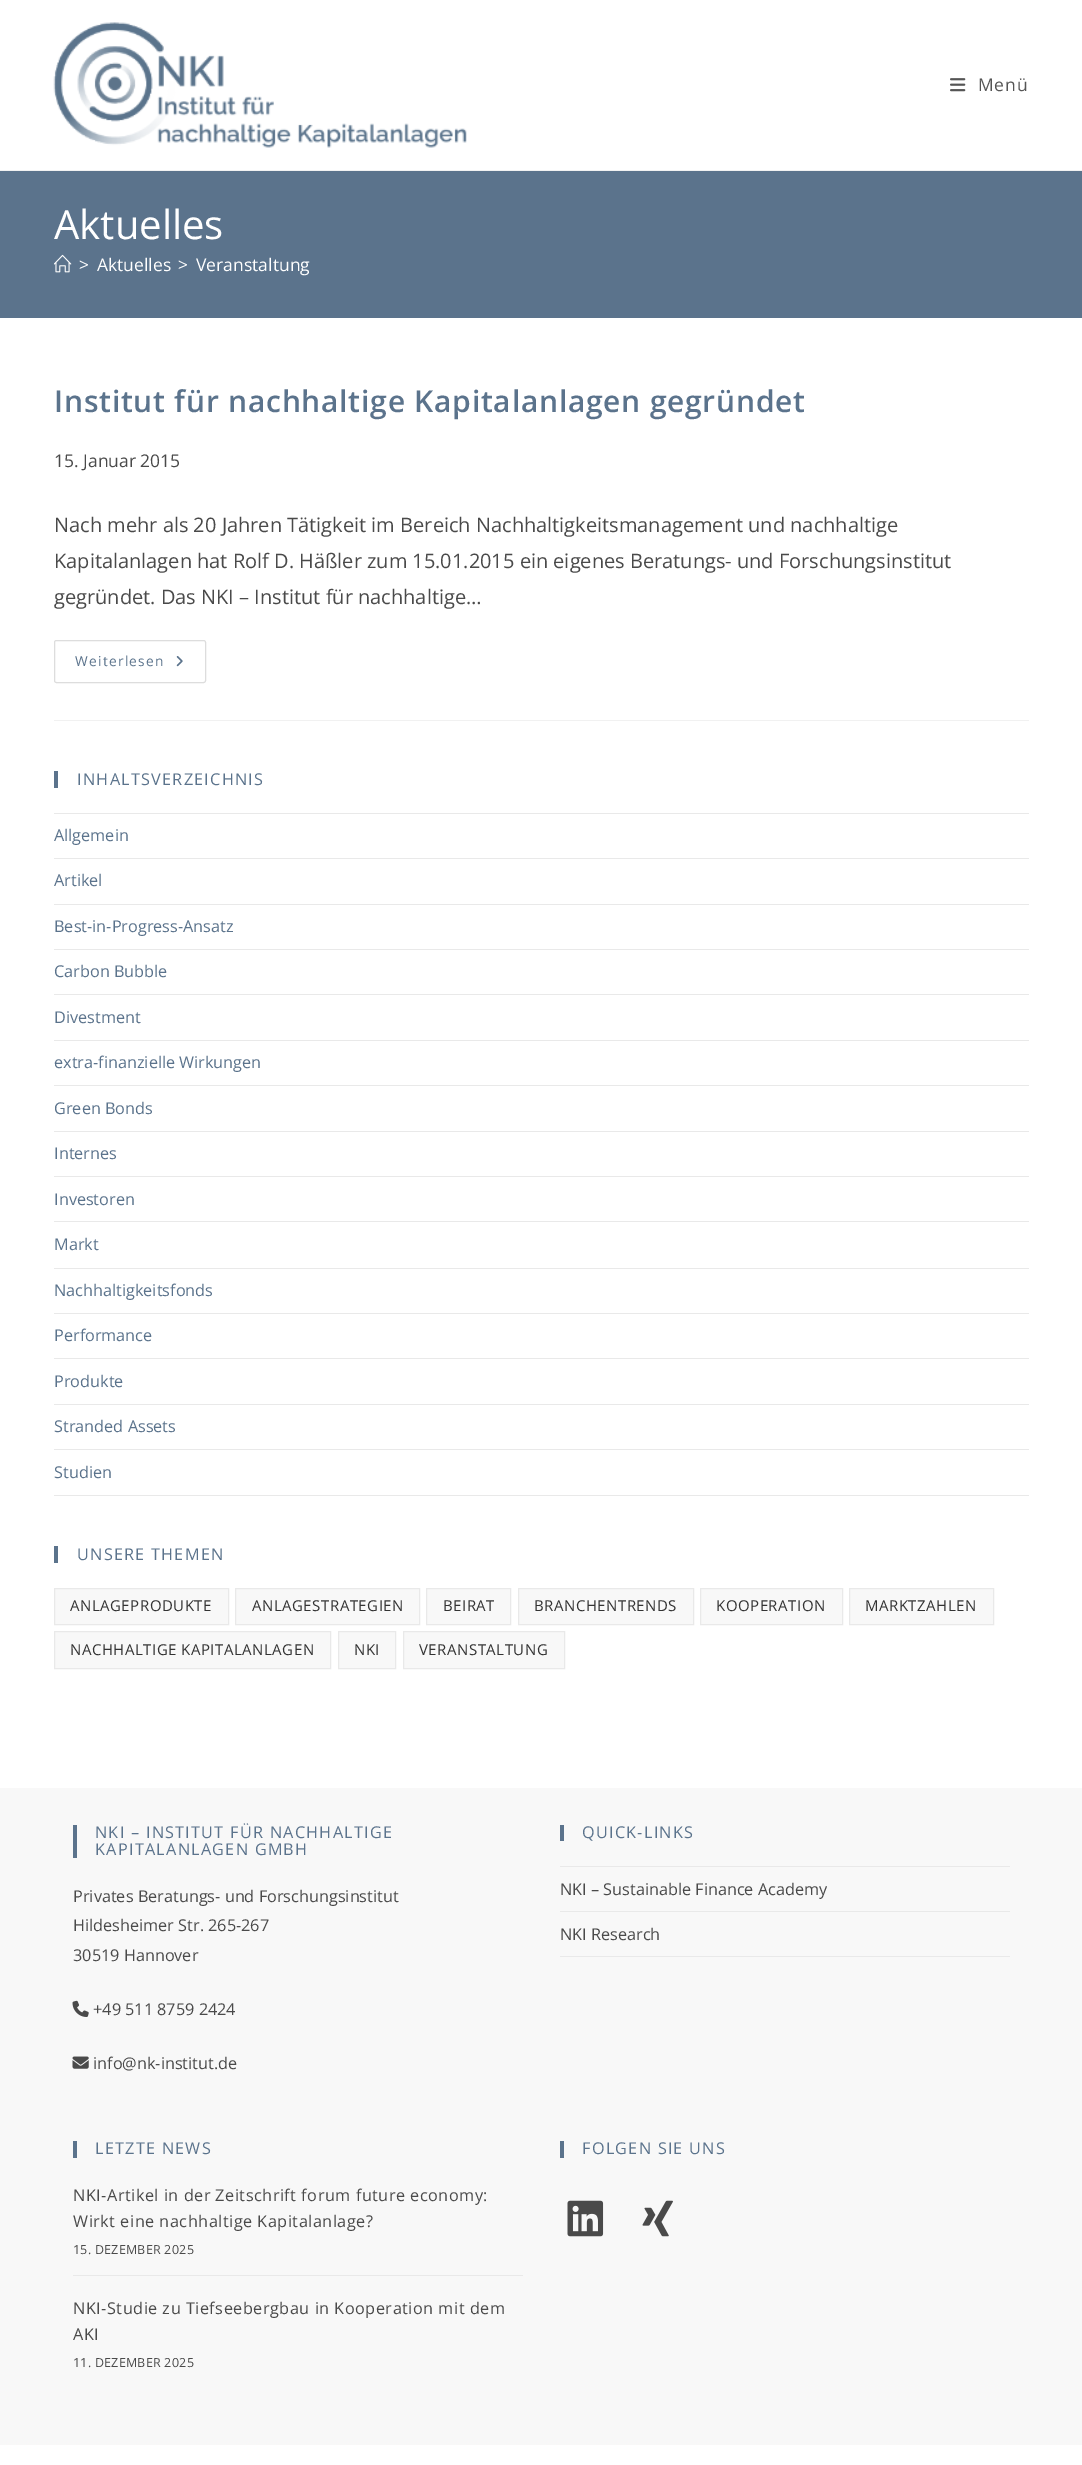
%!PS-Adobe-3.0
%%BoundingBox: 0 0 1082 2465
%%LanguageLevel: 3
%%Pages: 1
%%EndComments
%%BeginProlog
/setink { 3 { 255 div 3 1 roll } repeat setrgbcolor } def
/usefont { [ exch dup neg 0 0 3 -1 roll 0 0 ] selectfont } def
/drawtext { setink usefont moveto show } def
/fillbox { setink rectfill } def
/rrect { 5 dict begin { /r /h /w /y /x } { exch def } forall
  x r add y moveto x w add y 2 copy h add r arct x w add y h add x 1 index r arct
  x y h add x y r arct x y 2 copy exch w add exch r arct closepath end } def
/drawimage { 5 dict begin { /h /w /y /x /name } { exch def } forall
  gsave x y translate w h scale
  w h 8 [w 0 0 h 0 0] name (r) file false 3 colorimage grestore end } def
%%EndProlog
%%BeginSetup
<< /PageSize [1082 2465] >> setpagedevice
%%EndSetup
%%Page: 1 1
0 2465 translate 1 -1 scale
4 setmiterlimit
0 0 1082 2465 255 255 255 fillbox
0 170 1082 1 241 241 241 fillbox
(assets/img1.rgb) 53 22 414 126 drawimage
(assets/img2.rgb) 950 78 16 14 drawimage
/OpenSans-Regular 17.5 usefont
85 85 85 setink
978 91 moveto 0.75 0 (Menü) ashow
0 171 1082 147 91 115 140 fillbox
(Aktuelles) 54 239 /OpenSans-Regular 40 255 255 255 drawtext
(assets/img3.rgb) 54 254 18 19 drawimage
(>) 79 271 /OpenSans-Regular 17.5 255 255 255 drawtext
(Aktuelles) 97 271 /OpenSans-Regular 17.5 255 255 255 drawtext
(>) 178 271 /OpenSans-Regular 17.5 255 255 255 drawtext
(Veranstaltung) 196 271 /OpenSans-Regular 17.5 255 255 255 drawtext
54 720 975 1 241 241 241 fillbox
/OpenSans-SemiBold 30 usefont
91 115 140 setink
54 412 moveto 0.75 0 (Institut für nachhaltige Kapitalanlagen gegründet) ashow
(15. Januar 2015) 54 467 /OpenSans-Regular 17.5 74 74 74 drawtext
(Nach mehr als 20 Jahren Tätigkeit im Bereich Nachhaltigkeitsmanagement und nachhaltige) 54 532 /OpenSans-Regular 20 74 74 74 drawtext
(Kapitalanlagen hat Rolf D. Häßler zum 15.01.2015 ein eigenes Beratungs- und Forschungsinstitut) 54 568 /OpenSans-Regular 20 74 74 74 drawtext
(gegründet. Das NKI – Institut für nachhaltige…) 54 604 /OpenSans-Regular 20 74 74 74 drawtext
221 221 221 setink
54.5 640.5 151 42 2 rrect stroke
/OpenSans-Regular 13.75 usefont
91 115 140 setink
75 666 moveto 1.25 0 (Weiterlesen) ashow
(assets/img4.rgb) 176 656 7 11 drawimage
54 771 4 17 91 115 140 fillbox
/OpenSans-Regular 16.25 usefont
77 785 moveto 1.25 0 (INHALTSVERZEICHNIS) ashow
54 813 975 1 233 233 233 fillbox
54 858 975 1 233 233 233 fillbox
(Allgemein) 54 841 /OpenSans-Regular 16.25 91 115 140 drawtext
54 904 975 1 233 233 233 fillbox
(Artikel) 54 886 /OpenSans-Regular 16.25 91 115 140 drawtext
54 949 975 1 233 233 233 fillbox
(Best-in-Progress-Ansatz) 54 932 /OpenSans-Regular 16.25 91 115 140 drawtext
54 994 975 1 233 233 233 fillbox
(Carbon Bubble) 54 977 /OpenSans-Regular 16.25 91 115 140 drawtext
54 1040 975 1 233 233 233 fillbox
(Divestment) 54 1023 /OpenSans-Regular 16.25 91 115 140 drawtext
54 1085 975 1 233 233 233 fillbox
(extra-finanzielle Wirkungen) 54 1068 /OpenSans-Regular 16.25 91 115 140 drawtext
54 1131 975 1 233 233 233 fillbox
(Green Bonds) 54 1114 /OpenSans-Regular 16.25 91 115 140 drawtext
54 1176 975 1 233 233 233 fillbox
(Internes) 54 1159 /OpenSans-Regular 16.25 91 115 140 drawtext
54 1221 975 1 233 233 233 fillbox
(Investoren) 54 1205 /OpenSans-Regular 16.25 91 115 140 drawtext
54 1268 975 1 233 233 233 fillbox
(Markt) 54 1250 /OpenSans-Regular 16.25 91 115 140 drawtext
54 1313 975 1 233 233 233 fillbox
(Nachhaltigkeitsfonds) 54 1296 /OpenSans-Regular 16.25 91 115 140 drawtext
54 1358 975 1 233 233 233 fillbox
(Performance) 54 1341 /OpenSans-Regular 16.25 91 115 140 drawtext
54 1404 975 1 233 233 233 fillbox
(Produkte) 54 1387 /OpenSans-Regular 16.25 91 115 140 drawtext
54 1449 975 1 233 233 233 fillbox
(Stranded Assets) 54 1432 /OpenSans-Regular 16.25 91 115 140 drawtext
54 1495 975 1 233 233 233 fillbox
(Studien) 54 1478 /OpenSans-Regular 16.25 91 115 140 drawtext
54 1546 4 17 91 115 140 fillbox
77 1560 moveto 1.25 0 (UNSERE THEMEN) ashow
248 248 248 setink
54.5 1588.5 moveto 228.5 1588.5 lineto 228.5 1624.5 lineto 54.5 1624.5 lineto closepath gsave fill grestore
233 233 233 setink
stroke
/OpenSans-Regular 15 usefont
51 51 51 setink
70 1611 moveto 0.5 0 (ANLAGEPRODUKTE) ashow
248 248 248 setink
235.5 1588.5 moveto 419.5 1588.5 lineto 419.5 1624.5 lineto 235.5 1624.5 lineto closepath gsave fill grestore
233 233 233 setink
stroke
51 51 51 setink
252 1611 moveto 0.5 0 (ANLAGESTRATEGIEN) ashow
248 248 248 setink
426.5 1588.5 moveto 510.5 1588.5 lineto 510.5 1624.5 lineto 426.5 1624.5 lineto closepath gsave fill grestore
233 233 233 setink
stroke
51 51 51 setink
443 1611 moveto 0.5 0 (BEIRAT) ashow
248 248 248 setink
518.5 1588.5 moveto 693.5 1588.5 lineto 693.5 1624.5 lineto 518.5 1624.5 lineto closepath gsave fill grestore
233 233 233 setink
stroke
51 51 51 setink
534 1611 moveto 0.5 0 (BRANCHENTRENDS) ashow
248 248 248 setink
700.5 1588.5 moveto 842.5 1588.5 lineto 842.5 1624.5 lineto 700.5 1624.5 lineto closepath gsave fill grestore
233 233 233 setink
stroke
51 51 51 setink
716 1611 moveto 0.5 0 (KOOPERATION) ashow
248 248 248 setink
849.5 1588.5 moveto 993.5 1588.5 lineto 993.5 1624.5 lineto 849.5 1624.5 lineto closepath gsave fill grestore
233 233 233 setink
stroke
51 51 51 setink
865 1611 moveto 0.5 0 (MARKTZAHLEN) ashow
248 248 248 setink
54.5 1631.5 moveto 330.5 1631.5 lineto 330.5 1668.5 lineto 54.5 1668.5 lineto closepath gsave fill grestore
233 233 233 setink
stroke
51 51 51 setink
70 1655 moveto 0.5 0 (NACHHALTIGE KAPITALANLAGEN) ashow
248 248 248 setink
338.5 1631.5 moveto 395.5 1631.5 lineto 395.5 1668.5 lineto 338.5 1668.5 lineto closepath gsave fill grestore
233 233 233 setink
stroke
51 51 51 setink
354 1655 moveto 0.5 0 (NKI) ashow
248 248 248 setink
403.5 1631.5 moveto 564.5 1631.5 lineto 564.5 1668.5 lineto 403.5 1668.5 lineto closepath gsave fill grestore
233 233 233 setink
stroke
51 51 51 setink
419 1655 moveto 0.5 0 (VERANSTALTUNG) ashow
0 1788 1082 657 248 248 248 fillbox
73 1825 4 33 91 115 140 fillbox
/OpenSans-Regular 16.25 usefont
95 1838 moveto 1.25 0 (NKI – INSTITUT FÜR NACHHALTIGE) ashow
95 1855 moveto 1.25 0 (KAPITALANLAGEN GMBH) ashow
(Privates Beratungs- und Forschungsinstitut) 73 1902 /OpenSans-Regular 16.25 74 74 74 drawtext
(Hildesheimer Str. 265-267) 73 1931 /OpenSans-Regular 16.25 74 74 74 drawtext
(30519 Hannover) 73 1961 /OpenSans-Regular 16.25 74 74 74 drawtext
(assets/img5.rgb) 72 2000 17 17 drawimage
(+49 511 8759 2424) 93 2015 /OpenSans-Regular 16.25 74 74 74 drawtext
(assets/img6.rgb) 72 2056 17 13 drawimage
(info@nk-institut.de) 93 2069 /OpenSans-Regular 16.25 74 74 74 drawtext
560 1825 4 16 91 115 140 fillbox
582 1838 moveto 1.25 0 (QUICK-LINKS) ashow
560 1866 450 1 233 233 233 fillbox
560 1911 450 1 233 233 233 fillbox
(NKI – Sustainable Finance Academy) 560 1895 /OpenSans-Regular 16.25 74 74 74 drawtext
560 1956 450 1 233 233 233 fillbox
(NKI Research) 560 1940 /OpenSans-Regular 16.25 74 74 74 drawtext
73 2141 4 17 91 115 140 fillbox
95 2154 moveto 1.25 0 (LETZTE NEWS) ashow
74 74 74 setink
73 2201 moveto 0.5 0 (NKI-Artikel in der Zeitschrift forum future economy:) ashow
73 2227 moveto 0.5 0 (Wirkt eine nachhaltige Kapitalanlage?) ashow
/OpenSans-Regular 12.5 usefont
73 2254 moveto 0.25 0 (15. DEZEMBER 2025) ashow
73 2275 450 1 233 233 233 fillbox
/OpenSans-Regular 16.25 usefont
74 74 74 setink
73 2314 moveto 0.5 0 (NKI-Studie zu Tiefseebergbau in Kooperation mit dem) ashow
73 2340 moveto 0.5 0 (AKI) ashow
/OpenSans-Regular 12.5 usefont
73 2367 moveto 0.25 0 (11. DEZEMBER 2025) ashow
560 2141 4 17 91 115 140 fillbox
/OpenSans-Regular 16.25 usefont
582 2154 moveto 1.25 0 (FOLGEN SIE UNS) ashow
(assets/img7.rgb) 567 2200 37 37 drawimage
(assets/img8.rgb) 642 2200 31 37 drawimage
showpage
%%EOF
